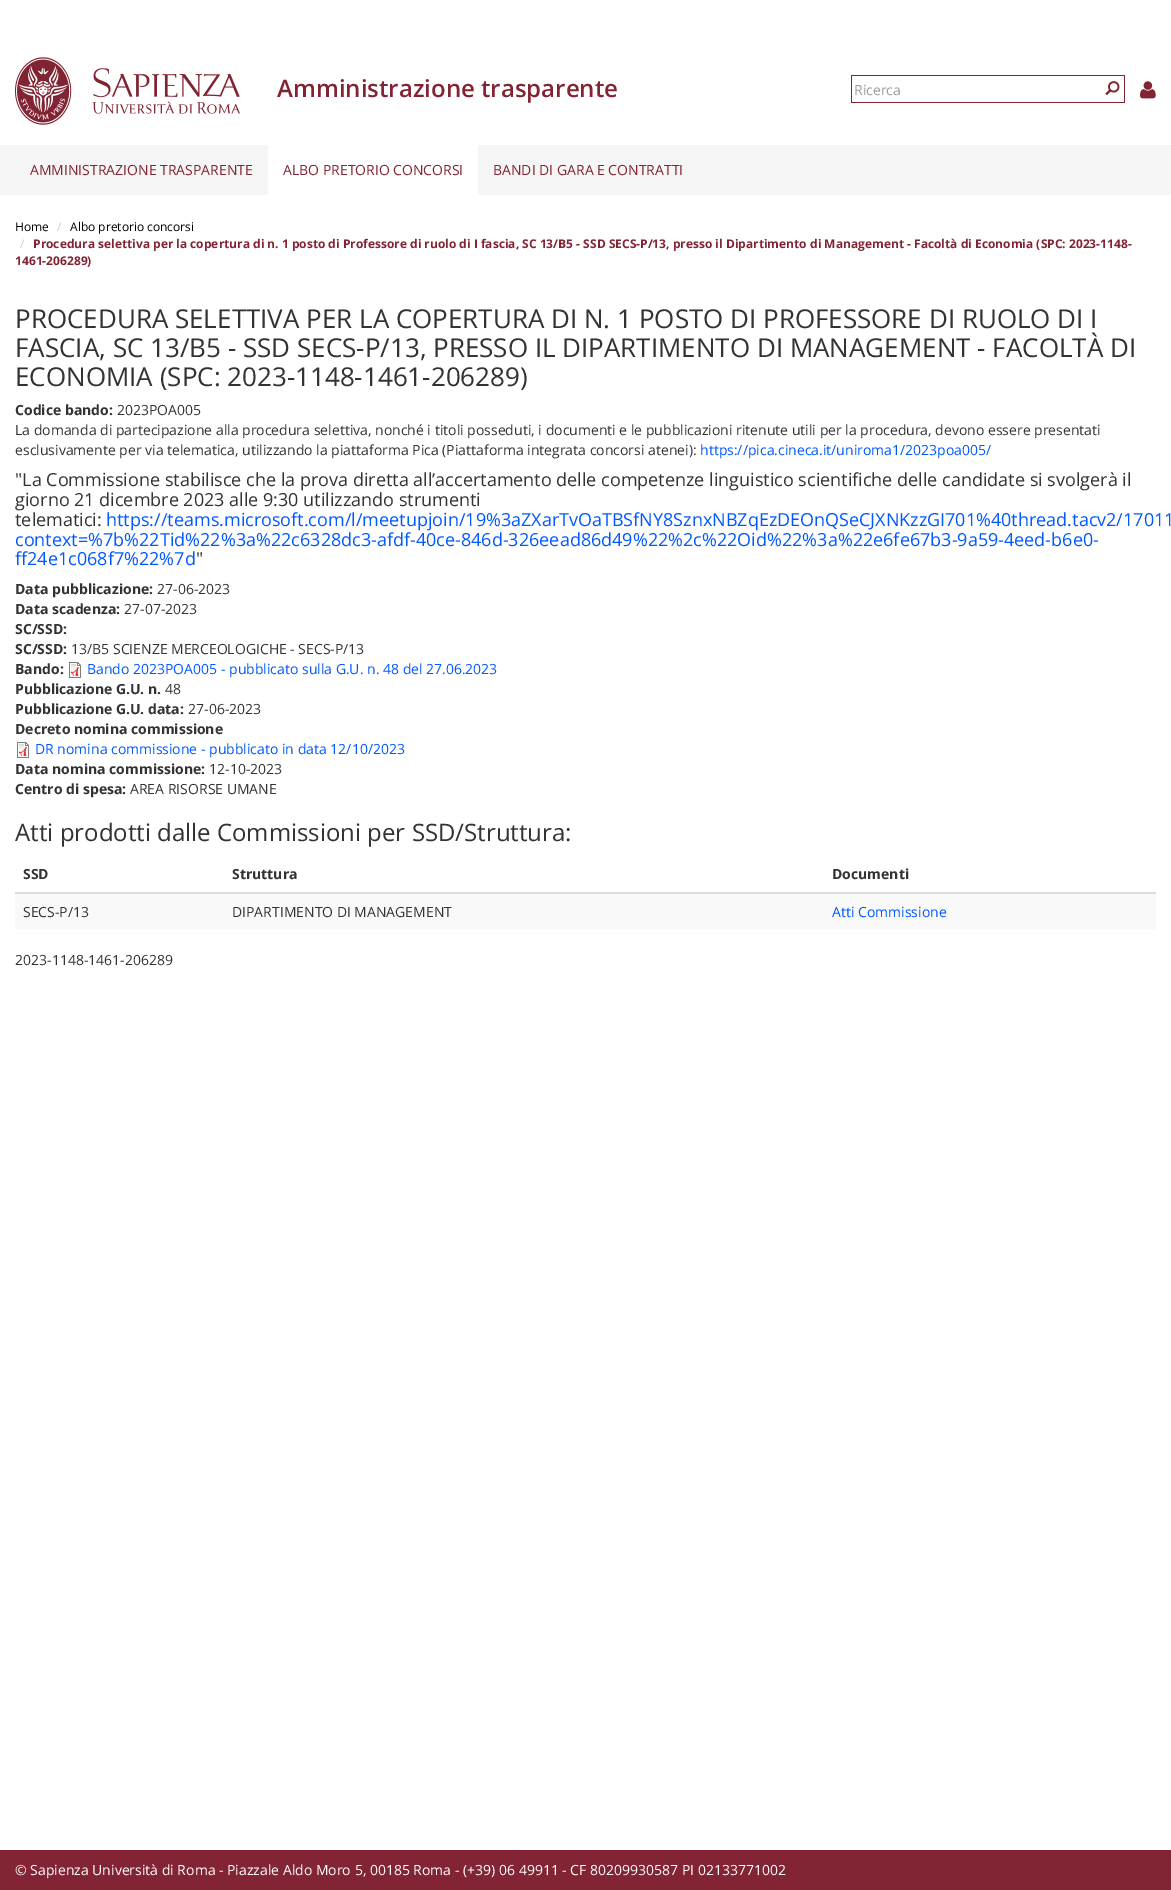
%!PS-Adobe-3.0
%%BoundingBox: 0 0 1171 1890
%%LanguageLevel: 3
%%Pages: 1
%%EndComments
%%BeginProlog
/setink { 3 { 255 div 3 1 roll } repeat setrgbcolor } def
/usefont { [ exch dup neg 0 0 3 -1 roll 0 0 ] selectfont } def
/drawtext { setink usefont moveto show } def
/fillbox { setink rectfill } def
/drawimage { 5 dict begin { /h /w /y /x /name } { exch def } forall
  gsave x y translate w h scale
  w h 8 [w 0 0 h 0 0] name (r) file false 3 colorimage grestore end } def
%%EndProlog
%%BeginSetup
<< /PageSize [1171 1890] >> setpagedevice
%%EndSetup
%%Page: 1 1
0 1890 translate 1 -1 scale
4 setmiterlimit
0 0 1171 1890 255 255 255 fillbox
(assets/img1.rgb) 15 57 225 68 drawimage
(Amministrazione trasparente) 277 97 /OpenSans-SemiBold 24 130 36 51 drawtext
851 75 274 1 130 36 51 fillbox
851 102 250 1 130 36 51 fillbox
851 75 1 28 130 36 51 fillbox
(Ricerca) 854 95 /OpenSans-Regular 14 153 153 153 drawtext
1124 75 1 28 130 36 51 fillbox
1100 102 25 1 130 36 51 fillbox
(assets/img2.rgb) 1105 81 15 14 drawimage
(assets/img3.rgb) 1140 81 16 18 drawimage
0 145 1171 50 245 245 245 fillbox
(AMMINISTRAZIONE TRASPARENTE) 30 175 /OpenSans-Regular 14 130 36 51 drawtext
268 145 210 50 255 255 255 fillbox
(ALBO PRETORIO CONCORSI) 283 175 /OpenSans-Regular 14 130 36 51 drawtext
(BANDI DI GARA E CONTRATTI) 493 175 /OpenSans-Regular 14 130 36 51 drawtext
(Home) 15 231 /OpenSans-Regular 12 0 0 0 drawtext
(/) 57 231 /OpenSans-Regular 12 204 204 204 drawtext
(Albo pretorio concorsi) 70 231 /OpenSans-Regular 12 0 0 0 drawtext
(/) 20 248 /OpenSans-Regular 12 204 204 204 drawtext
(Procedura selettiva per la copertura di n. 1 posto di Professore di ruolo di I fascia, SC 13/B5 - SSD SECS-P/13, presso il Dipartimento di Management - Facoltà di Economia \(SPC: 2023-1148-) 33 248 /OpenSans-Bold 12 130 36 51 drawtext
(1461-206289\)) 15 265 /OpenSans-Bold 12 130 36 51 drawtext
(PROCEDURA SELETTIVA PER LA COPERTURA DI N. 1 POSTO DI PROFESSORE DI RUOLO DI I) 15 328 /OpenSans-Regular 26 51 51 51 drawtext
(FASCIA, SC 13/B5 - SSD SECS-P/13, PRESSO IL DIPARTIMENTO DI MANAGEMENT - FACOLTÀ DI) 15 357 /OpenSans-Regular 26 51 51 51 drawtext
(ECONOMIA \(SPC: 2023-1148-1461-206289\)) 15 386 /OpenSans-Regular 26 51 51 51 drawtext
(Codice bando:) 15 415 /OpenSans-Bold 14 51 51 51 drawtext
(2023POA005) 117 415 /OpenSans-Regular 14 51 51 51 drawtext
(La domanda di partecipazione alla procedura selettiva, nonché i titoli posseduti, i documenti e le pubblicazioni ritenute utili per la procedura, devono essere presentati) 15 435 /OpenSans-Regular 14 51 51 51 drawtext
(esclusivamente per via telematica, utilizzando la piattaforma Pica \(Piattaforma integrata concorsi atenei\):) 15 455 /OpenSans-Regular 14 51 51 51 drawtext
(https://pica.cineca.it/uniroma1/2023poa005/) 700 455 /OpenSans-Regular 14 0 88 255 drawtext
("La Commissione stabilisce che la prova diretta all’accertamento delle competenze linguistico scientifiche delle candidate si svolgerà il) 15 486 /OpenSans-Regular 18 51 51 51 drawtext
(giorno 21 dicembre 2023 alle 9:30 utilizzando strumenti) 15 506 /OpenSans-Regular 18 51 51 51 drawtext
(telematici:) 15 526 /OpenSans-Regular 18 51 51 51 drawtext
(https://teams.microsoft.com/l/meetupjoin/19%3aZXarTvOaTBSfNY8SznxNBZqEzDEOnQSeCJXNKzzGI701%40thread.tacv2/17011) 106 526 /OpenSans-Regular 18 0 88 255 drawtext
(context=%7b%22Tid%22%3a%22c6328dc3-afdf-40ce-846d-326eead86d49%22%2c%22Oid%22%3a%22e6fe67b3-9a59-4eed-b6e0-) 15 546 /OpenSans-Regular 18 0 88 255 drawtext
(ff24e1c068f7%22%7d) 15 565 /OpenSans-Regular 18 0 88 255 drawtext
(") 196 565 /OpenSans-Regular 18 51 51 51 drawtext
(Data pubblicazione:) 15 594 /OpenSans-Bold 14 51 51 51 drawtext
(27-06-2023) 157 594 /OpenSans-Regular 14 51 51 51 drawtext
(Data scadenza:) 15 614 /OpenSans-Bold 14 51 51 51 drawtext
(27-07-2023) 124 614 /OpenSans-Regular 14 51 51 51 drawtext
(SC/SSD:) 15 634 /OpenSans-Bold 14 51 51 51 drawtext
(SC/SSD:) 15 654 /OpenSans-Bold 14 51 51 51 drawtext
(13/B5 SCIENZE MERCEOLOGICHE - SECS-P/13) 71 654 /OpenSans-Regular 14 51 51 51 drawtext
(Bando:) 15 674 /OpenSans-Bold 14 51 51 51 drawtext
(assets/img4.rgb) 69 662 12 16 drawimage
(Bando 2023POA005 - pubblicato sulla G.U. n. 48 del 27.06.2023) 87 674 /OpenSans-Regular 14 0 88 255 drawtext
(Pubblicazione G.U. n.) 15 694 /OpenSans-Bold 14 51 51 51 drawtext
(48) 165 694 /OpenSans-Regular 14 51 51 51 drawtext
(Pubblicazione G.U. data:) 15 714 /OpenSans-Bold 14 51 51 51 drawtext
(27-06-2023) 188 714 /OpenSans-Regular 14 51 51 51 drawtext
(Decreto nomina commissione) 15 734 /OpenSans-Bold 14 51 51 51 drawtext
(assets/img4.rgb) 17 742 12 16 drawimage
(DR nomina commissione - pubblicato in data 12/10/2023) 35 754 /OpenSans-Regular 14 0 88 255 drawtext
(Data nomina commissione:) 15 774 /OpenSans-Bold 14 51 51 51 drawtext
(12-10-2023) 209 774 /OpenSans-Regular 14 51 51 51 drawtext
(Centro di spesa:) 15 794 /OpenSans-Bold 14 51 51 51 drawtext
(AREA RISORSE UMANE) 130 794 /OpenSans-Regular 14 51 51 51 drawtext
(Atti prodotti dalle Commissioni per SSD/Struttura:) 15 841 /OpenSans-Regular 24 51 51 51 drawtext
(SSD) 23 879 /OpenSans-Bold 14 51 51 51 drawtext
(Struttura) 232 879 /OpenSans-Bold 14 51 51 51 drawtext
15 892 1141 2 221 221 221 fillbox
(Documenti) 832 879 /OpenSans-Bold 14 51 51 51 drawtext
15 894 1141 36 249 249 249 fillbox
(SECS-P/13) 23 917 /OpenSans-Regular 14 51 51 51 drawtext
(DIPARTIMENTO DI MANAGEMENT) 232 917 /OpenSans-Regular 14 51 51 51 drawtext
(Atti Commissione) 832 917 /OpenSans-Regular 14 0 88 255 drawtext
(2023-1148-1461-206289) 15 965 /OpenSans-Regular 14 51 51 51 drawtext
0 1850 1171 40 130 36 51 fillbox
(© Sapienza Università di Roma - Piazzale Aldo Moro 5, 00185 Roma - \(+39\) 06 49911 - CF 80209930587 PI 02133771002) 15 1875 /OpenSans-Regular 14 255 255 255 drawtext
showpage
%%EOF
